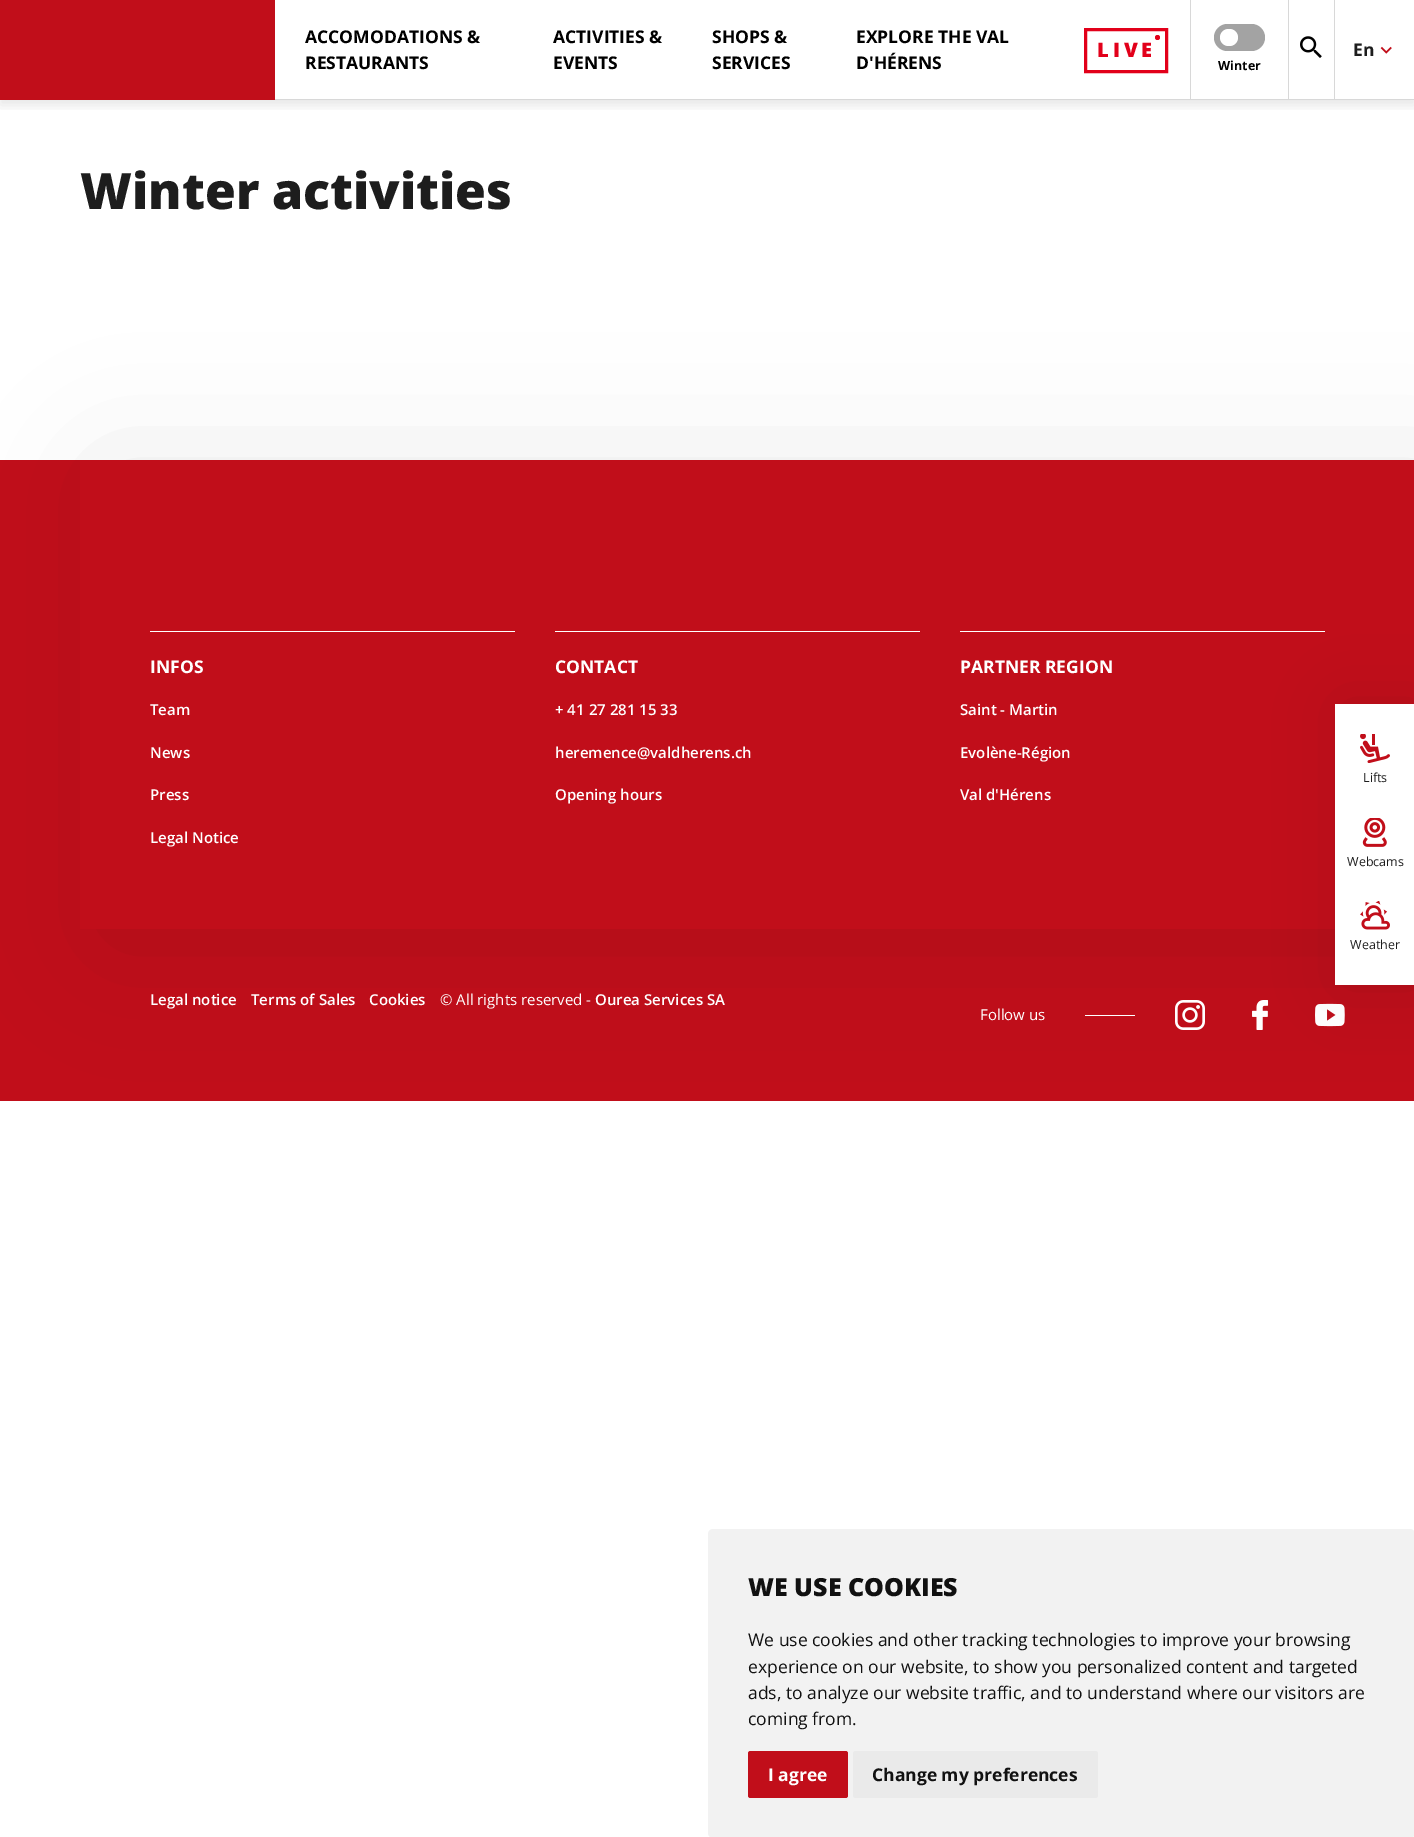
%!PS-Adobe-3.0
%%BoundingBox: 0 0 1414 1837
%%LanguageLevel: 3
%%Pages: 1
%%EndComments
%%BeginProlog
/setink { 3 { 255 div 3 1 roll } repeat setrgbcolor } def
/usefont { [ exch dup neg 0 0 3 -1 roll 0 0 ] selectfont } def
/drawtext { setink usefont moveto show } def
/fillbox { setink rectfill } def
/setalpha { dup .setfillconstantalpha .setstrokeconstantalpha } def
/disc { newpath 0 360 arc closepath } def
/rrect { 5 dict begin { /r /h /w /y /x } { exch def } forall
  x r add y moveto x w add y 2 copy h add r arct x w add y h add x 1 index r arct
  x y h add x y r arct x y 2 copy exch w add exch r arct closepath end } def
/softshadow { 12 dict begin { /a /b /q /h /w /y /x } { exch def } forall gsave /was 0 def
  9 -2 -9 { dup b mul 4 div /e exch def 1 sub .425 mul 2.718 exch exp 1 add a .99 .min exch div /now exch def
    1 1 now sub 1 was sub div sub setalpha /was now def
    w h .min e 2 mul add 0 gt { x e sub y e sub w e 2 mul add h e 2 mul add
      q e add b .6 mul add w h .min 2 div e add .min 0 .max rrect fill } if } for grestore end } def
/drawimage { 5 dict begin { /h /w /y /x /name } { exch def } forall
  gsave x y translate w h scale
  w h 8 [w 0 0 h 0 0] name (r) file false 3 colorimage grestore end } def
%%EndProlog
%%BeginSetup
<< /PageSize [1414 1837] /PageUsesTransparency true >> setpagedevice
%%EndSetup
%%Page: 1 1
0 .pushpdf14devicefilter
0 1837 translate 1 -1 scale
4 setmiterlimit
0 0 1414 1837 255 255 255 fillbox
(Winter activities) 80 209 /OpenSans-ExtraBold 50 29 29 29 drawtext
gsave
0 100 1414 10 rectclip
0 0 0 setink
0 5 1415 100 0 6 0.1 softshadow
grestore
0 0 275 100 193 14 26 fillbox
275 99 1139 1 216 216 216 fillbox
(ACCOMODATIONS &) 305 43 /OpenSans-Bold 17.5 0 0 0 drawtext
(RESTAURANTS) 305 69 /OpenSans-Bold 17.5 0 0 0 drawtext
(ACTIVITIES &) 553 43 /OpenSans-Bold 17.5 0 0 0 drawtext
(EVENTS) 553 69 /OpenSans-Bold 17.5 0 0 0 drawtext
(SHOPS &) 712 43 /OpenSans-Bold 17.5 0 0 0 drawtext
(SERVICES) 712 69 /OpenSans-Bold 17.5 0 0 0 drawtext
(EXPLORE THE VAL) 856 43 /OpenSans-Bold 17.5 0 0 0 drawtext
(D'HÉRENS) 856 69 /OpenSans-Bold 17.5 0 0 0 drawtext
1190 0 1 99 216 216 216 fillbox
226 0 26 setink
3 setlinewidth
1085.5 29.5 81 42 rectstroke
1157.5 37.5 2.5 disc fill
/OpenSans-ExtraBold 20 usefont
1097 57 moveto 4 0 (LIVE) ashow
1334 0 1 99 216 216 216 fillbox
(assets/img1.rgb) 1300 36 22 22 drawimage
(En) 1353 56 /OpenSans-Bold 17.5 29 29 29 drawtext
(assets/img2.rgb) 1380 46 12 8 drawimage
1288 0 1 99 216 216 216 fillbox
163 163 163 setink
1214 24 51 27 13.5 rrect fill
255 255 255 setink
1220 29 18 17 8.5 rrect fill
(Winter) 1218 70 /OpenSans-Bold 12.5 0 0 0 drawtext
0 460 1414 641 193 14 26 fillbox
gsave
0 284 moveto 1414 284 lineto 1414 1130 lineto 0 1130 lineto closepath 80 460 moveto 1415 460 lineto 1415 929 lineto 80 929 lineto closepath eoclip newpath
0 0 0 setink
105 473 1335 468 0 62.5 0.1 softshadow
grestore
960 631 365 1 255 255 255 fillbox
(assets/img7.rgb) 1252 1000 17 30 drawimage
(assets/img8.rgb) 1315 1003 30 24 drawimage
0 0 0 setink
1341 704 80 281 0 31 0.1 softshadow
1335 704 79 281 255 255 255 fillbox
(assets/img3.rgb) 1360 734 30 29 drawimage
(Lifts) 1363 782 /OpenSans-Regular 12.5 29 29 29 drawtext
(assets/img4.rgb) 1362 818 25 29 drawimage
(Webcams) 1347 866 /OpenSans-Regular 12.5 29 29 29 drawtext
(assets/img5.rgb) 1360 901 30 29 drawimage
(Weather) 1350 949 /OpenSans-Regular 12.5 29 29 29 drawtext
150 631 365 1 255 255 255 fillbox
(INFOS) 150 673 /OpenSans-Bold 17.5 255 255 255 drawtext
(Team) 150 715 /OpenSans-SemiBold 15 255 255 255 drawtext
(News) 150 758 /OpenSans-SemiBold 15 255 255 255 drawtext
(Press) 150 800 /OpenSans-SemiBold 15 255 255 255 drawtext
(Legal Notice) 150 843 /OpenSans-SemiBold 15 255 255 255 drawtext
555 631 365 1 255 255 255 fillbox
(CONTACT) 555 673 /OpenSans-Bold 17.5 255 255 255 drawtext
(+ 41 27 281 15 33) 555 715 /OpenSans-SemiBold 15 255 255 255 drawtext
(heremence@valdherens.ch) 555 758 /OpenSans-SemiBold 15 255 255 255 drawtext
(Opening hours) 555 800 /OpenSans-SemiBold 15 255 255 255 drawtext
(PARTNER REGION) 960 673 /OpenSans-Bold 17.5 255 255 255 drawtext
(Saint - Martin) 960 715 /OpenSans-SemiBold 15 255 255 255 drawtext
(Evolène-Région) 960 758 /OpenSans-SemiBold 15 255 255 255 drawtext
(Val d'Hérens) 960 800 /OpenSans-SemiBold 15 255 255 255 drawtext
(Legal notice) 150 1005 /OpenSans-SemiBold 15 255 255 255 drawtext
(Terms of Sales) 251 1005 /OpenSans-SemiBold 15 255 255 255 drawtext
(Cookies) 369 1005 /OpenSans-SemiBold 15 255 255 255 drawtext
(© All rights reserved -) 440 1005 /OpenSans-Regular 15 255 255 255 drawtext
(Ourea Services SA) 595 1005 /OpenSans-SemiBold 15 255 255 255 drawtext
(Follow us) 980 1020 /OpenSans-Regular 15 255 255 255 drawtext
1085 1015 50 1 255 255 255 fillbox
(assets/img6.rgb) 1175 1000 30 30 drawimage
242 242 242 setink
708 1529 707 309 5 rrect fill
(WE USE COOKIES) 748 1596 /OpenSans-ExtraBold 25 17 17 17 drawtext
(We use cookies and other tracking technologies to improve your browsing) 748 1646 /OpenSans-Regular 17.5 17 17 17 drawtext
(experience on our website, to show you personalized content and targeted) 748 1673 /OpenSans-Regular 17.5 17 17 17 drawtext
(ads, to analyze our website traffic, and to understand where our visitors are) 748 1699 /OpenSans-Regular 17.5 17 17 17 drawtext
(coming from.) 748 1725 /OpenSans-Regular 17.5 17 17 17 drawtext
193 14 26 setink
748 1751 100 47 2.5 rrect fill
(I agree) 768 1781 /OpenSans-Bold 17.5 255 255 255 drawtext
234 234 234 setink
853 1751 245 47 2.5 rrect fill
(Change my preferences) 872 1781 /OpenSans-Bold 17.5 17 17 17 drawtext
.poppdf14devicefilter showpage
%%EOF
